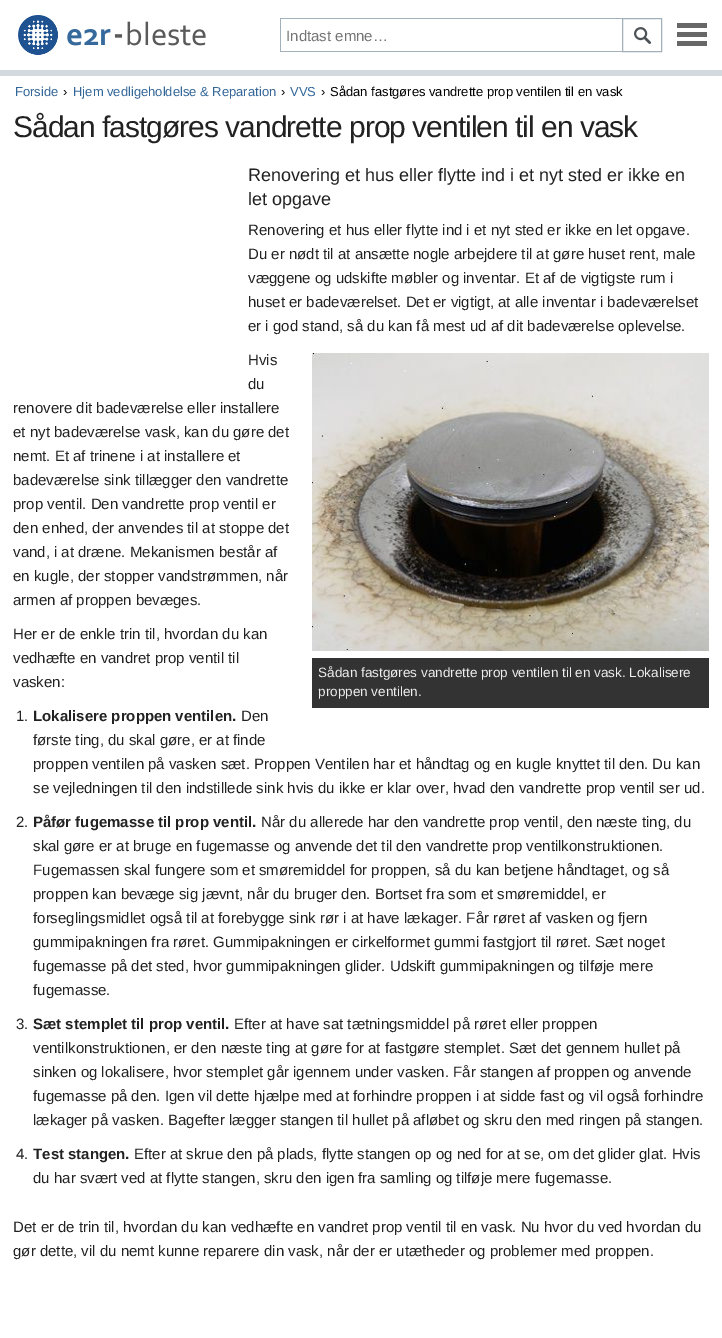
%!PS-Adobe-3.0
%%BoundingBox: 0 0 722 1338
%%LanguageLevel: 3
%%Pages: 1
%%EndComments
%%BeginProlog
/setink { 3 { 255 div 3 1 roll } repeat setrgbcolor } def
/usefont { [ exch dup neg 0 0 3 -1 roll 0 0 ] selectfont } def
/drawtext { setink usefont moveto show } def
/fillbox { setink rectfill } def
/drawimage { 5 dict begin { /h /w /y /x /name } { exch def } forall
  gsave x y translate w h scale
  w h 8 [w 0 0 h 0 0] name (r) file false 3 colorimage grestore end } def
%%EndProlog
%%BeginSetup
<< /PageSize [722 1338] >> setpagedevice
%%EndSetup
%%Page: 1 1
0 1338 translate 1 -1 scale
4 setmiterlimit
0 0 722 1338 255 255 255 fillbox
(assets/img1.rgb) 18 15 188 40 drawimage
280 18 342 1 162 177 185 fillbox
280 51 342 1 162 177 185 fillbox
280 18 1 34 162 177 185 fillbox
(Indtast emne…) 286 41 /LiberationSans-Regular 15 117 117 117 drawtext
(assets/img2.rgb) 634 27 17 17 drawimage
162 177 185 setink
622.5 18.5 39 33 rectstroke
(assets/img3.rgb) 677 23 30 23 drawimage
0 70 722 6 210 218 223 fillbox
(Forside) 15 96 /LiberationSans-Regular 13 51 102 153 drawtext
(›) 63 96 /LiberationSans-Regular 13 0 0 0 drawtext
(Hjem vedligeholdelse & Reparation) 73 96 /LiberationSans-Regular 13 51 102 153 drawtext
(›) 281 96 /LiberationSans-Regular 13 0 0 0 drawtext
(VVS) 290 96 /LiberationSans-Regular 13 51 102 153 drawtext
(›) 321 96 /LiberationSans-Regular 13 0 0 0 drawtext
(Sådan fastgøres vandrette prop ventilen til en vask) 330 96 /LiberationSans-Regular 13 0 0 0 drawtext
/LiberationSans-Regular 30 usefont
34 34 34 setink
13 137 moveto -1 0 (Sådan fastgøres vandrette prop ventilen til en vask) ashow
(Renovering et hus eller flytte ind i et nyt sted er ikke en) 248 181 /LiberationSans-Regular 18 34 34 34 drawtext
(let opgave) 248 205 /LiberationSans-Regular 18 34 34 34 drawtext
(Renovering et hus eller flytte ind i et nyt sted er ikke en let opgave.) 248 235 /LiberationSans-Regular 15 34 34 34 drawtext
(Du er nødt til at ansætte nogle arbejdere til at gøre huset rent, male) 248 259 /LiberationSans-Regular 15 34 34 34 drawtext
(væggene og udskifte møbler og inventar. Et af de vigtigste rum i) 248 283 /LiberationSans-Regular 15 34 34 34 drawtext
(huset er badeværelset. Det er vigtigt, at alle inventar i badeværelset) 248 307 /LiberationSans-Regular 15 34 34 34 drawtext
(er i god stand, så du kan få mest ud af dit badeværelse oplevelse.) 248 331 /LiberationSans-Regular 15 34 34 34 drawtext
(Hvis) 248 365 /LiberationSans-Regular 15 34 34 34 drawtext
(du) 248 389 /LiberationSans-Regular 15 34 34 34 drawtext
(renovere dit badeværelse eller installere) 13 413 /LiberationSans-Regular 15 34 34 34 drawtext
(et nyt badeværelse vask, kan du gøre det) 13 437 /LiberationSans-Regular 15 34 34 34 drawtext
(nemt. Et af trinene i at installere et) 13 461 /LiberationSans-Regular 15 34 34 34 drawtext
(badeværelse sink tillægger den vandrette) 13 485 /LiberationSans-Regular 15 34 34 34 drawtext
(prop ventil. Den vandrette prop ventil er) 13 509 /LiberationSans-Regular 15 34 34 34 drawtext
(den enhed, der anvendes til at stoppe det) 13 533 /LiberationSans-Regular 15 34 34 34 drawtext
(vand, i at dræne. Mekanismen består af) 13 557 /LiberationSans-Regular 15 34 34 34 drawtext
(en kugle, der stopper vandstrømmen, når) 13 581 /LiberationSans-Regular 15 34 34 34 drawtext
(armen af proppen bevæges.) 13 605 /LiberationSans-Regular 15 34 34 34 drawtext
(Her er de enkle trin til, hvordan du kan) 13 639 /LiberationSans-Regular 15 34 34 34 drawtext
(vedhæfte en vandret prop ventil til) 13 663 /LiberationSans-Regular 15 34 34 34 drawtext
(vasken:) 13 687 /LiberationSans-Regular 15 34 34 34 drawtext
(assets/img4.rgb) 312 353 397 298 drawimage
312 658 397 50 51 51 51 fillbox
(Sådan fastgøres vandrette prop ventilen til en vask. Lokalisere) 318 677 /LiberationSans-Regular 13.5 238 238 238 drawtext
(proppen ventilen.) 318 696 /LiberationSans-Regular 13.5 238 238 238 drawtext
(1.) 16 721 /LiberationSans-Regular 15 34 34 34 drawtext
(Lokalisere proppen ventilen.) 33 721 /LiberationSans-Bold 15 34 34 34 drawtext
(Den) 241 721 /LiberationSans-Regular 15 34 34 34 drawtext
(første ting, du skal gøre, er at finde) 33 745 /LiberationSans-Regular 15 34 34 34 drawtext
(proppen ventilen på vasken sæt. Proppen Ventilen har et håndtag og en kugle knyttet til den. Du kan) 33 769 /LiberationSans-Regular 15 34 34 34 drawtext
(se vejledningen til den indstillede sink hvis du ikke er klar over, hvad den vandrette prop ventil ser ud.) 33 793 /LiberationSans-Regular 15 34 34 34 drawtext
(2.) 16 827 /LiberationSans-Regular 15 34 34 34 drawtext
(Påfør fugemasse til prop ventil.) 33 827 /LiberationSans-Bold 15 34 34 34 drawtext
(Når du allerede har den vandrette prop ventil, den næste ting, du) 261 827 /LiberationSans-Regular 15 34 34 34 drawtext
(skal gøre er at bruge en fugemasse og anvende det til den vandrette prop ventilkonstruktionen.) 33 851 /LiberationSans-Regular 15 34 34 34 drawtext
(Fugemassen skal fungere som et smøremiddel for proppen, så du kan betjene håndtaget, og så) 33 875 /LiberationSans-Regular 15 34 34 34 drawtext
(proppen kan bevæge sig jævnt, når du bruger den. Bortset fra som et smøremiddel, er) 33 899 /LiberationSans-Regular 15 34 34 34 drawtext
(forseglingsmidlet også til at forebygge sink rør i at have lækager. Får røret af vasken og fjern) 33 923 /LiberationSans-Regular 15 34 34 34 drawtext
(gummipakningen fra røret. Gummipakningen er cirkelformet gummi fastgjort til røret. Sæt noget) 33 947 /LiberationSans-Regular 15 34 34 34 drawtext
(fugemasse på det sted, hvor gummipakningen glider. Udskift gummipakningen og tilføje mere) 33 971 /LiberationSans-Regular 15 34 34 34 drawtext
(fugemasse.) 33 995 /LiberationSans-Regular 15 34 34 34 drawtext
(3.) 16 1029 /LiberationSans-Regular 15 34 34 34 drawtext
(Sæt stemplet til prop ventil.) 33 1029 /LiberationSans-Bold 15 34 34 34 drawtext
(Efter at have sat tætningsmiddel på røret eller proppen) 234 1029 /LiberationSans-Regular 15 34 34 34 drawtext
(ventilkonstruktionen, er den næste ting at gøre for at fastgøre stemplet. Sæt det gennem hullet på) 33 1053 /LiberationSans-Regular 15 34 34 34 drawtext
(sinken og lokalisere, hvor stemplet går igennem under vasken. Får stangen af proppen og anvende) 33 1077 /LiberationSans-Regular 15 34 34 34 drawtext
(fugemasse på den. Igen vil dette hjælpe med at forhindre proppen i at sidde fast og vil også forhindre) 33 1101 /LiberationSans-Regular 15 34 34 34 drawtext
(lækager på vasken. Bagefter lægger stangen til hullet på afløbet og skru den med ringen på stangen.) 33 1125 /LiberationSans-Regular 15 34 34 34 drawtext
(4.) 16 1159 /LiberationSans-Regular 15 34 34 34 drawtext
(Test stangen.) 33 1159 /LiberationSans-Bold 15 34 34 34 drawtext
(Efter at skrue den på plads, flytte stangen op og ned for at se, om det glider glat. Hvis) 134 1159 /LiberationSans-Regular 15 34 34 34 drawtext
(du har svært ved at flytte stangen, skru den igen fra samling og tilføje mere fugemasse.) 33 1183 /LiberationSans-Regular 15 34 34 34 drawtext
(Det er de trin til, hvordan du kan vedhæfte en vandret prop ventil til en vask. Nu hvor du ved hvordan du) 13 1232 /LiberationSans-Regular 15 34 34 34 drawtext
(gør dette, vil du nemt kunne reparere din vask, når der er utætheder og problemer med proppen.) 13 1256 /LiberationSans-Regular 15 34 34 34 drawtext
showpage
%%EOF
